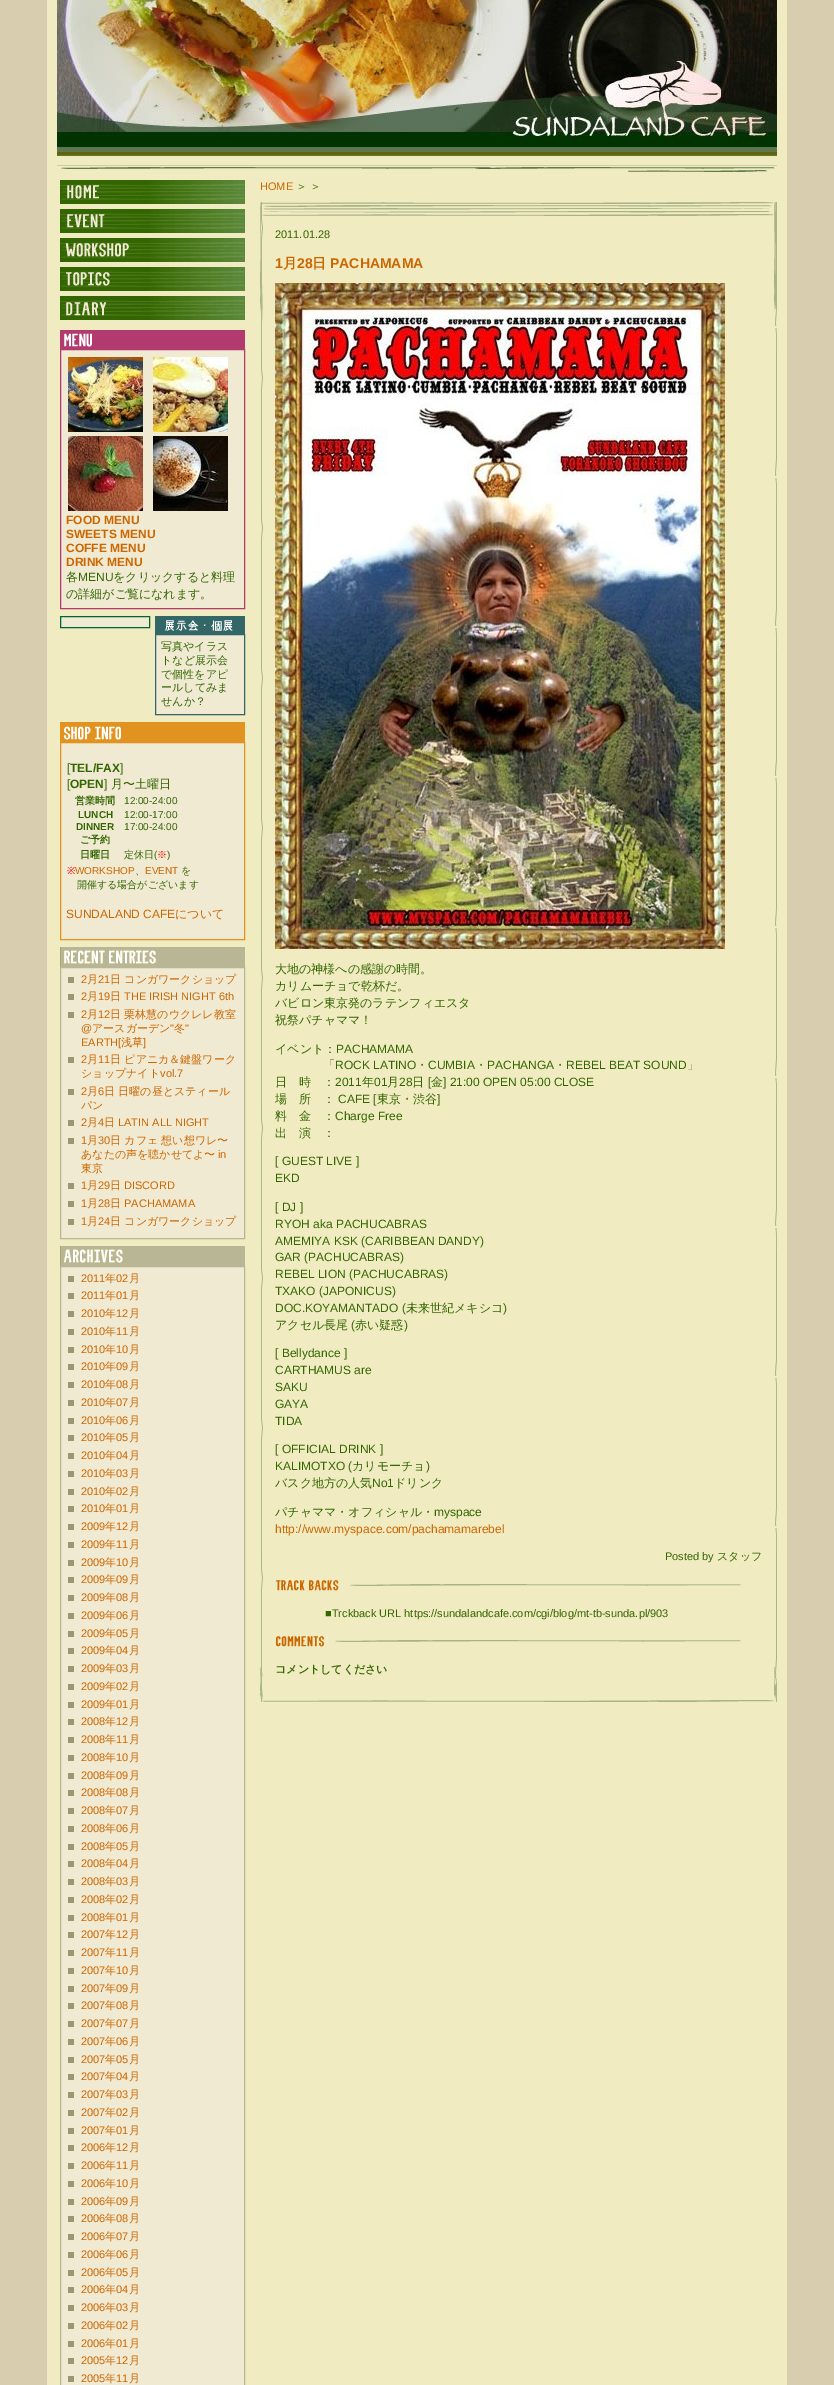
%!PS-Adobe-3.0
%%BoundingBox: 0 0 834 2385
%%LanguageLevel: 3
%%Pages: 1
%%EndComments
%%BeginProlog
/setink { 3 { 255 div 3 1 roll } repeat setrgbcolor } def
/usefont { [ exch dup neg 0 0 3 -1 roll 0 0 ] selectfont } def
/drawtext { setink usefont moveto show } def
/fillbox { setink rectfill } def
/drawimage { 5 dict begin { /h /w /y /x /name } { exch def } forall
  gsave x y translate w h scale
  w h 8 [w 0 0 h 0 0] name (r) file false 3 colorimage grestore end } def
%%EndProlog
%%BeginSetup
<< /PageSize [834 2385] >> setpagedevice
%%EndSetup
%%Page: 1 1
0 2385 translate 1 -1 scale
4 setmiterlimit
0 0 834 2385 217 205 175 fillbox
47 0 740 2385 240 235 192 fillbox
(assets/img1.rgb) 57 0 720 156 drawimage
(assets/img2.rgb) 57 165 720 7 drawimage
(assets/img3.rgb) 60 180 185 24 drawimage
(assets/img4.rgb) 60 209 185 24 drawimage
(assets/img5.rgb) 60 238 185 24 drawimage
(assets/img6.rgb) 60 267 185 24 drawimage
(assets/img7.rgb) 60 296 185 24 drawimage
60 330 185 19 179 58 110 fillbox
(assets/img8.rgb) 64 333 28 14 drawimage
240 234 211 setink
60.5 349.5 moveto 244.5 349.5 lineto 244.5 608.5 lineto 60.5 608.5 lineto closepath gsave fill grestore
179 58 110 setink
stroke
(assets/img9.rgb) 68 357 75 75 drawimage
(assets/img10.rgb) 153 357 75 75 drawimage
(assets/img11.rgb) 68 436 75 75 drawimage
(assets/img12.rgb) 153 436 75 75 drawimage
(FOOD MENU) 66 524 /LiberationSans-Bold 12 204 102 0 drawtext
(SWEETS MENU) 66 538 /LiberationSans-Bold 12 204 102 0 drawtext
(COFFE MENU) 66 552 /LiberationSans-Bold 12 204 102 0 drawtext
(DRINK MENU) 66 566 /LiberationSans-Bold 12 204 102 0 drawtext
(各) 66 581 /WenQuanYiZenHei-Medium 12 51 102 0 drawtext
(MENU) 78 581 /LiberationSans-Regular 12 51 102 0 drawtext
(をクリックすると料理) 113 581 /WenQuanYiZenHei-Medium 12 51 102 0 drawtext
(の詳細がご覧になれます。) 66 598 /WenQuanYiZenHei-Medium 12 51 102 0 drawtext
240 234 211 setink
60.5 616.5 moveto 149.5 616.5 lineto 149.5 627.5 lineto 60.5 627.5 lineto closepath gsave fill grestore
0 102 51 setink
stroke
155 616 90 18 51 102 102 fillbox
(assets/img13.rgb) 165 620 68 11 drawimage
240 234 211 setink
155.5 634.5 moveto 244.5 634.5 lineto 244.5 714.5 lineto 155.5 714.5 lineto closepath gsave fill grestore
51 102 102 setink
stroke
(写真やイラス) 161 650 /WenQuanYiZenHei-Medium 11 51 102 0 drawtext
(トなど展示会) 161 664 /WenQuanYiZenHei-Medium 11 51 102 0 drawtext
(で個性をアピ) 161 678 /WenQuanYiZenHei-Medium 11 51 102 0 drawtext
(ールしてみま) 161 691 /WenQuanYiZenHei-Medium 11 51 102 0 drawtext
(せんか？) 161 705 /WenQuanYiZenHei-Medium 11 51 102 0 drawtext
60 722 185 20 226 147 31 fillbox
(assets/img14.rgb) 64 726 57 14 drawimage
240 234 211 setink
60.5 742.5 moveto 244.5 742.5 lineto 244.5 939.5 lineto 60.5 939.5 lineto closepath gsave fill grestore
226 147 31 setink
stroke
([) 67 772 /LiberationSans-Regular 12 51 102 0 drawtext
(TEL/FAX) 70 772 /LiberationSans-Bold 12 51 102 0 drawtext
(]) 120 772 /LiberationSans-Regular 12 51 102 0 drawtext
([) 67 788 /LiberationSans-Regular 12 51 102 0 drawtext
(OPEN) 70 788 /LiberationSans-Bold 12 51 102 0 drawtext
(]) 104 788 /LiberationSans-Regular 12 51 102 0 drawtext
(月〜土曜日) 111 788 /WenQuanYiZenHei-Medium 12 51 102 0 drawtext
(営業時間) 75 804 /WenQuanYiZenHei-Bold 10 51 102 0 drawtext
(12:00-24:00) 124 804 /LiberationSans-Regular 10 51 102 0 drawtext
(LUNCH) 78 818 /LiberationSans-Bold 10 51 102 0 drawtext
(12:00-17:00) 124 818 /LiberationSans-Regular 10 51 102 0 drawtext
(DINNER) 76 830 /LiberationSans-Bold 10 51 102 0 drawtext
(17:00-24:00) 124 830 /LiberationSans-Regular 10 51 102 0 drawtext
(ご予約) 80 843 /WenQuanYiZenHei-Bold 10 51 102 0 drawtext
(日曜日) 80 858 /WenQuanYiZenHei-Bold 10 51 102 0 drawtext
(定休日) 124 858 /WenQuanYiZenHei-Medium 10 51 102 0 drawtext
(\() 154 858 /LiberationSans-Regular 10 51 102 0 drawtext
(※) 157 858 /WenQuanYiZenHei-Medium 10 255 0 0 drawtext
(\)) 167 858 /LiberationSans-Regular 10 51 102 0 drawtext
(※) 67 874 /NotoSans-Regular 10 255 0 0 drawtext
(WORKSHOP) 75 874 /LiberationSans-Regular 10 204 102 0 drawtext
(EVENT) 145 874 /LiberationSans-Regular 10 204 102 0 drawtext
(を) 181 874 /WenQuanYiZenHei-Medium 10 51 102 0 drawtext
(、) 135 874 /WenQuanYiZenHei-Medium 10 51 102 0 drawtext
(開催する場合がございます) 77 888 /WenQuanYiZenHei-Medium 10 51 102 0 drawtext
(SUNDALAND CAFE) 66 918 /LiberationSans-Regular 12 204 102 0 drawtext
(について) 175 918 /WenQuanYiZenHei-Medium 12 204 102 0 drawtext
61 947 184 20 185 182 149 fillbox
(assets/img15.rgb) 60 947 96 20 drawimage
240 234 211 setink
60.5 967.5 moveto 244.5 967.5 lineto 244.5 1238.5 lineto 60.5 1238.5 lineto closepath gsave fill grestore
185 182 149 setink
stroke
68 977 6 6 155 151 113 fillbox
(2) 81 983 /LiberationSans-Regular 11 204 102 0 drawtext
(月) 87 983 /WenQuanYiZenHei-Medium 11 204 102 0 drawtext
(21) 98 983 /LiberationSans-Regular 11 204 102 0 drawtext
(日 コンガワークショップ) 110 983 /WenQuanYiZenHei-Medium 11 204 102 0 drawtext
68 994 6 6 155 151 113 fillbox
(2) 81 1000 /LiberationSans-Regular 11 204 102 0 drawtext
(月) 87 1000 /WenQuanYiZenHei-Medium 11 204 102 0 drawtext
(19) 98 1000 /LiberationSans-Regular 11 204 102 0 drawtext
(日) 110 1000 /WenQuanYiZenHei-Medium 11 204 102 0 drawtext
(THE IRISH NIGHT 6th) 124 1000 /LiberationSans-Regular 11 204 102 0 drawtext
68 1012 6 6 155 151 113 fillbox
(2) 81 1018 /LiberationSans-Regular 11 204 102 0 drawtext
(月) 87 1018 /WenQuanYiZenHei-Medium 11 204 102 0 drawtext
(12) 98 1018 /LiberationSans-Regular 11 204 102 0 drawtext
(日 栗林慧のウクレレ教室) 110 1018 /WenQuanYiZenHei-Medium 11 204 102 0 drawtext
(@) 81 1032 /LiberationSans-Regular 11 204 102 0 drawtext
(アースガーデン) 92 1032 /WenQuanYiZenHei-Medium 11 204 102 0 drawtext
(") 170 1032 /LiberationSans-Regular 11 204 102 0 drawtext
(冬) 174 1032 /WenQuanYiZenHei-Medium 11 204 102 0 drawtext
(") 185 1032 /LiberationSans-Regular 11 204 102 0 drawtext
(EARTH[) 81 1046 /LiberationSans-Regular 11 204 102 0 drawtext
(浅草) 121 1046 /WenQuanYiZenHei-Medium 11 204 102 0 drawtext
(]) 143 1046 /LiberationSans-Regular 11 204 102 0 drawtext
68 1057 6 6 155 151 113 fillbox
(2) 81 1063 /LiberationSans-Regular 11 204 102 0 drawtext
(月) 87 1063 /WenQuanYiZenHei-Medium 11 204 102 0 drawtext
(11) 98 1063 /LiberationSans-Regular 11 204 102 0 drawtext
(日 ピアニカ＆鍵盤ワーク) 110 1063 /WenQuanYiZenHei-Medium 11 204 102 0 drawtext
(ショップナイト) 81 1077 /WenQuanYiZenHei-Medium 11 204 102 0 drawtext
(vol.7) 160 1077 /LiberationSans-Regular 11 204 102 0 drawtext
68 1089 6 6 155 151 113 fillbox
(2) 81 1095 /LiberationSans-Regular 11 204 102 0 drawtext
(月) 87 1095 /WenQuanYiZenHei-Medium 11 204 102 0 drawtext
(6) 98 1095 /LiberationSans-Regular 11 204 102 0 drawtext
(日 日曜の昼とスティール) 104 1095 /WenQuanYiZenHei-Medium 11 204 102 0 drawtext
(パン) 81 1109 /WenQuanYiZenHei-Medium 11 204 102 0 drawtext
68 1120 6 6 155 151 113 fillbox
(2) 81 1126 /LiberationSans-Regular 11 204 102 0 drawtext
(月) 87 1126 /WenQuanYiZenHei-Medium 11 204 102 0 drawtext
(4) 98 1126 /LiberationSans-Regular 11 204 102 0 drawtext
(日) 104 1126 /WenQuanYiZenHei-Medium 11 204 102 0 drawtext
(LATIN ALL NIGHT) 118 1126 /LiberationSans-Regular 11 204 102 0 drawtext
68 1138 6 6 155 151 113 fillbox
(1) 81 1144 /LiberationSans-Regular 11 204 102 0 drawtext
(月) 87 1144 /WenQuanYiZenHei-Medium 11 204 102 0 drawtext
(30) 98 1144 /LiberationSans-Regular 11 204 102 0 drawtext
(日 カフェ 想い想ワレ〜) 110 1144 /WenQuanYiZenHei-Medium 11 204 102 0 drawtext
(あなたの声を聴かせてよ〜) 81 1158 /WenQuanYiZenHei-Medium 11 204 102 0 drawtext
(in) 218 1158 /LiberationSans-Regular 11 204 102 0 drawtext
(東京) 81 1172 /WenQuanYiZenHei-Medium 11 204 102 0 drawtext
68 1183 6 6 155 151 113 fillbox
(1) 81 1189 /LiberationSans-Regular 11 204 102 0 drawtext
(月) 87 1189 /WenQuanYiZenHei-Medium 11 204 102 0 drawtext
(29) 98 1189 /LiberationSans-Regular 11 204 102 0 drawtext
(日) 110 1189 /WenQuanYiZenHei-Medium 11 204 102 0 drawtext
(DISCORD) 124 1189 /LiberationSans-Regular 11 204 102 0 drawtext
68 1201 6 6 155 151 113 fillbox
(1) 81 1207 /LiberationSans-Regular 11 204 102 0 drawtext
(月) 87 1207 /WenQuanYiZenHei-Medium 11 204 102 0 drawtext
(28) 98 1207 /LiberationSans-Regular 11 204 102 0 drawtext
(日) 110 1207 /WenQuanYiZenHei-Medium 11 204 102 0 drawtext
(PACHAMAMA) 124 1207 /LiberationSans-Regular 11 204 102 0 drawtext
68 1219 6 6 155 151 113 fillbox
(1) 81 1225 /LiberationSans-Regular 11 204 102 0 drawtext
(月) 87 1225 /WenQuanYiZenHei-Medium 11 204 102 0 drawtext
(24) 98 1225 /LiberationSans-Regular 11 204 102 0 drawtext
(日 コンガワークショップ) 110 1225 /WenQuanYiZenHei-Medium 11 204 102 0 drawtext
61 1246 184 20 185 182 149 fillbox
(assets/img16.rgb) 60 1246 63 20 drawimage
240 234 211 setink
60.5 1266.5 moveto 244.5 1266.5 lineto 244.5 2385.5 lineto 60.5 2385.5 lineto closepath gsave fill grestore
185 182 149 setink
stroke
68 1276 6 6 155 151 113 fillbox
(2011) 81 1282 /LiberationSans-Regular 11 204 102 0 drawtext
(年) 105 1282 /WenQuanYiZenHei-Medium 11 204 102 0 drawtext
(02) 116 1282 /LiberationSans-Regular 11 204 102 0 drawtext
(月) 129 1282 /WenQuanYiZenHei-Medium 11 204 102 0 drawtext
68 1293 6 6 155 151 113 fillbox
(2011) 81 1299 /LiberationSans-Regular 11 204 102 0 drawtext
(年) 105 1299 /WenQuanYiZenHei-Medium 11 204 102 0 drawtext
(01) 116 1299 /LiberationSans-Regular 11 204 102 0 drawtext
(月) 129 1299 /WenQuanYiZenHei-Medium 11 204 102 0 drawtext
68 1311 6 6 155 151 113 fillbox
(2010) 81 1317 /LiberationSans-Regular 11 204 102 0 drawtext
(年) 105 1317 /WenQuanYiZenHei-Medium 11 204 102 0 drawtext
(12) 116 1317 /LiberationSans-Regular 11 204 102 0 drawtext
(月) 129 1317 /WenQuanYiZenHei-Medium 11 204 102 0 drawtext
68 1329 6 6 155 151 113 fillbox
(2010) 81 1335 /LiberationSans-Regular 11 204 102 0 drawtext
(年) 105 1335 /WenQuanYiZenHei-Medium 11 204 102 0 drawtext
(11) 116 1335 /LiberationSans-Regular 11 204 102 0 drawtext
(月) 129 1335 /WenQuanYiZenHei-Medium 11 204 102 0 drawtext
68 1347 6 6 155 151 113 fillbox
(2010) 81 1353 /LiberationSans-Regular 11 204 102 0 drawtext
(年) 105 1353 /WenQuanYiZenHei-Medium 11 204 102 0 drawtext
(10) 116 1353 /LiberationSans-Regular 11 204 102 0 drawtext
(月) 129 1353 /WenQuanYiZenHei-Medium 11 204 102 0 drawtext
68 1364 6 6 155 151 113 fillbox
(2010) 81 1370 /LiberationSans-Regular 11 204 102 0 drawtext
(年) 105 1370 /WenQuanYiZenHei-Medium 11 204 102 0 drawtext
(09) 116 1370 /LiberationSans-Regular 11 204 102 0 drawtext
(月) 129 1370 /WenQuanYiZenHei-Medium 11 204 102 0 drawtext
68 1382 6 6 155 151 113 fillbox
(2010) 81 1388 /LiberationSans-Regular 11 204 102 0 drawtext
(年) 105 1388 /WenQuanYiZenHei-Medium 11 204 102 0 drawtext
(08) 116 1388 /LiberationSans-Regular 11 204 102 0 drawtext
(月) 129 1388 /WenQuanYiZenHei-Medium 11 204 102 0 drawtext
68 1400 6 6 155 151 113 fillbox
(2010) 81 1406 /LiberationSans-Regular 11 204 102 0 drawtext
(年) 105 1406 /WenQuanYiZenHei-Medium 11 204 102 0 drawtext
(07) 116 1406 /LiberationSans-Regular 11 204 102 0 drawtext
(月) 129 1406 /WenQuanYiZenHei-Medium 11 204 102 0 drawtext
68 1418 6 6 155 151 113 fillbox
(2010) 81 1424 /LiberationSans-Regular 11 204 102 0 drawtext
(年) 105 1424 /WenQuanYiZenHei-Medium 11 204 102 0 drawtext
(06) 116 1424 /LiberationSans-Regular 11 204 102 0 drawtext
(月) 129 1424 /WenQuanYiZenHei-Medium 11 204 102 0 drawtext
68 1435 6 6 155 151 113 fillbox
(2010) 81 1441 /LiberationSans-Regular 11 204 102 0 drawtext
(年) 105 1441 /WenQuanYiZenHei-Medium 11 204 102 0 drawtext
(05) 116 1441 /LiberationSans-Regular 11 204 102 0 drawtext
(月) 129 1441 /WenQuanYiZenHei-Medium 11 204 102 0 drawtext
68 1453 6 6 155 151 113 fillbox
(2010) 81 1459 /LiberationSans-Regular 11 204 102 0 drawtext
(年) 105 1459 /WenQuanYiZenHei-Medium 11 204 102 0 drawtext
(04) 116 1459 /LiberationSans-Regular 11 204 102 0 drawtext
(月) 129 1459 /WenQuanYiZenHei-Medium 11 204 102 0 drawtext
68 1471 6 6 155 151 113 fillbox
(2010) 81 1477 /LiberationSans-Regular 11 204 102 0 drawtext
(年) 105 1477 /WenQuanYiZenHei-Medium 11 204 102 0 drawtext
(03) 116 1477 /LiberationSans-Regular 11 204 102 0 drawtext
(月) 129 1477 /WenQuanYiZenHei-Medium 11 204 102 0 drawtext
68 1489 6 6 155 151 113 fillbox
(2010) 81 1495 /LiberationSans-Regular 11 204 102 0 drawtext
(年) 105 1495 /WenQuanYiZenHei-Medium 11 204 102 0 drawtext
(02) 116 1495 /LiberationSans-Regular 11 204 102 0 drawtext
(月) 129 1495 /WenQuanYiZenHei-Medium 11 204 102 0 drawtext
68 1506 6 6 155 151 113 fillbox
(2010) 81 1512 /LiberationSans-Regular 11 204 102 0 drawtext
(年) 105 1512 /WenQuanYiZenHei-Medium 11 204 102 0 drawtext
(01) 116 1512 /LiberationSans-Regular 11 204 102 0 drawtext
(月) 129 1512 /WenQuanYiZenHei-Medium 11 204 102 0 drawtext
68 1524 6 6 155 151 113 fillbox
(2009) 81 1530 /LiberationSans-Regular 11 204 102 0 drawtext
(年) 105 1530 /WenQuanYiZenHei-Medium 11 204 102 0 drawtext
(12) 116 1530 /LiberationSans-Regular 11 204 102 0 drawtext
(月) 129 1530 /WenQuanYiZenHei-Medium 11 204 102 0 drawtext
68 1542 6 6 155 151 113 fillbox
(2009) 81 1548 /LiberationSans-Regular 11 204 102 0 drawtext
(年) 105 1548 /WenQuanYiZenHei-Medium 11 204 102 0 drawtext
(11) 116 1548 /LiberationSans-Regular 11 204 102 0 drawtext
(月) 129 1548 /WenQuanYiZenHei-Medium 11 204 102 0 drawtext
68 1560 6 6 155 151 113 fillbox
(2009) 81 1566 /LiberationSans-Regular 11 204 102 0 drawtext
(年) 105 1566 /WenQuanYiZenHei-Medium 11 204 102 0 drawtext
(10) 116 1566 /LiberationSans-Regular 11 204 102 0 drawtext
(月) 129 1566 /WenQuanYiZenHei-Medium 11 204 102 0 drawtext
68 1577 6 6 155 151 113 fillbox
(2009) 81 1583 /LiberationSans-Regular 11 204 102 0 drawtext
(年) 105 1583 /WenQuanYiZenHei-Medium 11 204 102 0 drawtext
(09) 116 1583 /LiberationSans-Regular 11 204 102 0 drawtext
(月) 129 1583 /WenQuanYiZenHei-Medium 11 204 102 0 drawtext
68 1595 6 6 155 151 113 fillbox
(2009) 81 1601 /LiberationSans-Regular 11 204 102 0 drawtext
(年) 105 1601 /WenQuanYiZenHei-Medium 11 204 102 0 drawtext
(08) 116 1601 /LiberationSans-Regular 11 204 102 0 drawtext
(月) 129 1601 /WenQuanYiZenHei-Medium 11 204 102 0 drawtext
68 1613 6 6 155 151 113 fillbox
(2009) 81 1619 /LiberationSans-Regular 11 204 102 0 drawtext
(年) 105 1619 /WenQuanYiZenHei-Medium 11 204 102 0 drawtext
(06) 116 1619 /LiberationSans-Regular 11 204 102 0 drawtext
(月) 129 1619 /WenQuanYiZenHei-Medium 11 204 102 0 drawtext
68 1631 6 6 155 151 113 fillbox
(2009) 81 1637 /LiberationSans-Regular 11 204 102 0 drawtext
(年) 105 1637 /WenQuanYiZenHei-Medium 11 204 102 0 drawtext
(05) 116 1637 /LiberationSans-Regular 11 204 102 0 drawtext
(月) 129 1637 /WenQuanYiZenHei-Medium 11 204 102 0 drawtext
68 1648 6 6 155 151 113 fillbox
(2009) 81 1654 /LiberationSans-Regular 11 204 102 0 drawtext
(年) 105 1654 /WenQuanYiZenHei-Medium 11 204 102 0 drawtext
(04) 116 1654 /LiberationSans-Regular 11 204 102 0 drawtext
(月) 129 1654 /WenQuanYiZenHei-Medium 11 204 102 0 drawtext
68 1666 6 6 155 151 113 fillbox
(2009) 81 1672 /LiberationSans-Regular 11 204 102 0 drawtext
(年) 105 1672 /WenQuanYiZenHei-Medium 11 204 102 0 drawtext
(03) 116 1672 /LiberationSans-Regular 11 204 102 0 drawtext
(月) 129 1672 /WenQuanYiZenHei-Medium 11 204 102 0 drawtext
68 1684 6 6 155 151 113 fillbox
(2009) 81 1690 /LiberationSans-Regular 11 204 102 0 drawtext
(年) 105 1690 /WenQuanYiZenHei-Medium 11 204 102 0 drawtext
(02) 116 1690 /LiberationSans-Regular 11 204 102 0 drawtext
(月) 129 1690 /WenQuanYiZenHei-Medium 11 204 102 0 drawtext
68 1702 6 6 155 151 113 fillbox
(2009) 81 1708 /LiberationSans-Regular 11 204 102 0 drawtext
(年) 105 1708 /WenQuanYiZenHei-Medium 11 204 102 0 drawtext
(01) 116 1708 /LiberationSans-Regular 11 204 102 0 drawtext
(月) 129 1708 /WenQuanYiZenHei-Medium 11 204 102 0 drawtext
68 1719 6 6 155 151 113 fillbox
(2008) 81 1725 /LiberationSans-Regular 11 204 102 0 drawtext
(年) 105 1725 /WenQuanYiZenHei-Medium 11 204 102 0 drawtext
(12) 116 1725 /LiberationSans-Regular 11 204 102 0 drawtext
(月) 129 1725 /WenQuanYiZenHei-Medium 11 204 102 0 drawtext
68 1737 6 6 155 151 113 fillbox
(2008) 81 1743 /LiberationSans-Regular 11 204 102 0 drawtext
(年) 105 1743 /WenQuanYiZenHei-Medium 11 204 102 0 drawtext
(11) 116 1743 /LiberationSans-Regular 11 204 102 0 drawtext
(月) 129 1743 /WenQuanYiZenHei-Medium 11 204 102 0 drawtext
68 1755 6 6 155 151 113 fillbox
(2008) 81 1761 /LiberationSans-Regular 11 204 102 0 drawtext
(年) 105 1761 /WenQuanYiZenHei-Medium 11 204 102 0 drawtext
(10) 116 1761 /LiberationSans-Regular 11 204 102 0 drawtext
(月) 129 1761 /WenQuanYiZenHei-Medium 11 204 102 0 drawtext
68 1773 6 6 155 151 113 fillbox
(2008) 81 1779 /LiberationSans-Regular 11 204 102 0 drawtext
(年) 105 1779 /WenQuanYiZenHei-Medium 11 204 102 0 drawtext
(09) 116 1779 /LiberationSans-Regular 11 204 102 0 drawtext
(月) 129 1779 /WenQuanYiZenHei-Medium 11 204 102 0 drawtext
68 1790 6 6 155 151 113 fillbox
(2008) 81 1796 /LiberationSans-Regular 11 204 102 0 drawtext
(年) 105 1796 /WenQuanYiZenHei-Medium 11 204 102 0 drawtext
(08) 116 1796 /LiberationSans-Regular 11 204 102 0 drawtext
(月) 129 1796 /WenQuanYiZenHei-Medium 11 204 102 0 drawtext
68 1808 6 6 155 151 113 fillbox
(2008) 81 1814 /LiberationSans-Regular 11 204 102 0 drawtext
(年) 105 1814 /WenQuanYiZenHei-Medium 11 204 102 0 drawtext
(07) 116 1814 /LiberationSans-Regular 11 204 102 0 drawtext
(月) 129 1814 /WenQuanYiZenHei-Medium 11 204 102 0 drawtext
68 1826 6 6 155 151 113 fillbox
(2008) 81 1832 /LiberationSans-Regular 11 204 102 0 drawtext
(年) 105 1832 /WenQuanYiZenHei-Medium 11 204 102 0 drawtext
(06) 116 1832 /LiberationSans-Regular 11 204 102 0 drawtext
(月) 129 1832 /WenQuanYiZenHei-Medium 11 204 102 0 drawtext
68 1844 6 6 155 151 113 fillbox
(2008) 81 1850 /LiberationSans-Regular 11 204 102 0 drawtext
(年) 105 1850 /WenQuanYiZenHei-Medium 11 204 102 0 drawtext
(05) 116 1850 /LiberationSans-Regular 11 204 102 0 drawtext
(月) 129 1850 /WenQuanYiZenHei-Medium 11 204 102 0 drawtext
68 1861 6 6 155 151 113 fillbox
(2008) 81 1867 /LiberationSans-Regular 11 204 102 0 drawtext
(年) 105 1867 /WenQuanYiZenHei-Medium 11 204 102 0 drawtext
(04) 116 1867 /LiberationSans-Regular 11 204 102 0 drawtext
(月) 129 1867 /WenQuanYiZenHei-Medium 11 204 102 0 drawtext
68 1879 6 6 155 151 113 fillbox
(2008) 81 1885 /LiberationSans-Regular 11 204 102 0 drawtext
(年) 105 1885 /WenQuanYiZenHei-Medium 11 204 102 0 drawtext
(03) 116 1885 /LiberationSans-Regular 11 204 102 0 drawtext
(月) 129 1885 /WenQuanYiZenHei-Medium 11 204 102 0 drawtext
68 1897 6 6 155 151 113 fillbox
(2008) 81 1903 /LiberationSans-Regular 11 204 102 0 drawtext
(年) 105 1903 /WenQuanYiZenHei-Medium 11 204 102 0 drawtext
(02) 116 1903 /LiberationSans-Regular 11 204 102 0 drawtext
(月) 129 1903 /WenQuanYiZenHei-Medium 11 204 102 0 drawtext
68 1915 6 6 155 151 113 fillbox
(2008) 81 1921 /LiberationSans-Regular 11 204 102 0 drawtext
(年) 105 1921 /WenQuanYiZenHei-Medium 11 204 102 0 drawtext
(01) 116 1921 /LiberationSans-Regular 11 204 102 0 drawtext
(月) 129 1921 /WenQuanYiZenHei-Medium 11 204 102 0 drawtext
68 1932 6 6 155 151 113 fillbox
(2007) 81 1938 /LiberationSans-Regular 11 204 102 0 drawtext
(年) 105 1938 /WenQuanYiZenHei-Medium 11 204 102 0 drawtext
(12) 116 1938 /LiberationSans-Regular 11 204 102 0 drawtext
(月) 129 1938 /WenQuanYiZenHei-Medium 11 204 102 0 drawtext
68 1950 6 6 155 151 113 fillbox
(2007) 81 1956 /LiberationSans-Regular 11 204 102 0 drawtext
(年) 105 1956 /WenQuanYiZenHei-Medium 11 204 102 0 drawtext
(11) 116 1956 /LiberationSans-Regular 11 204 102 0 drawtext
(月) 129 1956 /WenQuanYiZenHei-Medium 11 204 102 0 drawtext
68 1968 6 6 155 151 113 fillbox
(2007) 81 1974 /LiberationSans-Regular 11 204 102 0 drawtext
(年) 105 1974 /WenQuanYiZenHei-Medium 11 204 102 0 drawtext
(10) 116 1974 /LiberationSans-Regular 11 204 102 0 drawtext
(月) 129 1974 /WenQuanYiZenHei-Medium 11 204 102 0 drawtext
68 1986 6 6 155 151 113 fillbox
(2007) 81 1992 /LiberationSans-Regular 11 204 102 0 drawtext
(年) 105 1992 /WenQuanYiZenHei-Medium 11 204 102 0 drawtext
(09) 116 1992 /LiberationSans-Regular 11 204 102 0 drawtext
(月) 129 1992 /WenQuanYiZenHei-Medium 11 204 102 0 drawtext
68 2003 6 6 155 151 113 fillbox
(2007) 81 2009 /LiberationSans-Regular 11 204 102 0 drawtext
(年) 105 2009 /WenQuanYiZenHei-Medium 11 204 102 0 drawtext
(08) 116 2009 /LiberationSans-Regular 11 204 102 0 drawtext
(月) 129 2009 /WenQuanYiZenHei-Medium 11 204 102 0 drawtext
68 2021 6 6 155 151 113 fillbox
(2007) 81 2027 /LiberationSans-Regular 11 204 102 0 drawtext
(年) 105 2027 /WenQuanYiZenHei-Medium 11 204 102 0 drawtext
(07) 116 2027 /LiberationSans-Regular 11 204 102 0 drawtext
(月) 129 2027 /WenQuanYiZenHei-Medium 11 204 102 0 drawtext
68 2039 6 6 155 151 113 fillbox
(2007) 81 2045 /LiberationSans-Regular 11 204 102 0 drawtext
(年) 105 2045 /WenQuanYiZenHei-Medium 11 204 102 0 drawtext
(06) 116 2045 /LiberationSans-Regular 11 204 102 0 drawtext
(月) 129 2045 /WenQuanYiZenHei-Medium 11 204 102 0 drawtext
68 2057 6 6 155 151 113 fillbox
(2007) 81 2063 /LiberationSans-Regular 11 204 102 0 drawtext
(年) 105 2063 /WenQuanYiZenHei-Medium 11 204 102 0 drawtext
(05) 116 2063 /LiberationSans-Regular 11 204 102 0 drawtext
(月) 129 2063 /WenQuanYiZenHei-Medium 11 204 102 0 drawtext
68 2074 6 6 155 151 113 fillbox
(2007) 81 2080 /LiberationSans-Regular 11 204 102 0 drawtext
(年) 105 2080 /WenQuanYiZenHei-Medium 11 204 102 0 drawtext
(04) 116 2080 /LiberationSans-Regular 11 204 102 0 drawtext
(月) 129 2080 /WenQuanYiZenHei-Medium 11 204 102 0 drawtext
68 2092 6 6 155 151 113 fillbox
(2007) 81 2098 /LiberationSans-Regular 11 204 102 0 drawtext
(年) 105 2098 /WenQuanYiZenHei-Medium 11 204 102 0 drawtext
(03) 116 2098 /LiberationSans-Regular 11 204 102 0 drawtext
(月) 129 2098 /WenQuanYiZenHei-Medium 11 204 102 0 drawtext
68 2110 6 6 155 151 113 fillbox
(2007) 81 2116 /LiberationSans-Regular 11 204 102 0 drawtext
(年) 105 2116 /WenQuanYiZenHei-Medium 11 204 102 0 drawtext
(02) 116 2116 /LiberationSans-Regular 11 204 102 0 drawtext
(月) 129 2116 /WenQuanYiZenHei-Medium 11 204 102 0 drawtext
68 2128 6 6 155 151 113 fillbox
(2007) 81 2134 /LiberationSans-Regular 11 204 102 0 drawtext
(年) 105 2134 /WenQuanYiZenHei-Medium 11 204 102 0 drawtext
(01) 116 2134 /LiberationSans-Regular 11 204 102 0 drawtext
(月) 129 2134 /WenQuanYiZenHei-Medium 11 204 102 0 drawtext
68 2145 6 6 155 151 113 fillbox
(2006) 81 2151 /LiberationSans-Regular 11 204 102 0 drawtext
(年) 105 2151 /WenQuanYiZenHei-Medium 11 204 102 0 drawtext
(12) 116 2151 /LiberationSans-Regular 11 204 102 0 drawtext
(月) 129 2151 /WenQuanYiZenHei-Medium 11 204 102 0 drawtext
68 2163 6 6 155 151 113 fillbox
(2006) 81 2169 /LiberationSans-Regular 11 204 102 0 drawtext
(年) 105 2169 /WenQuanYiZenHei-Medium 11 204 102 0 drawtext
(11) 116 2169 /LiberationSans-Regular 11 204 102 0 drawtext
(月) 129 2169 /WenQuanYiZenHei-Medium 11 204 102 0 drawtext
68 2181 6 6 155 151 113 fillbox
(2006) 81 2187 /LiberationSans-Regular 11 204 102 0 drawtext
(年) 105 2187 /WenQuanYiZenHei-Medium 11 204 102 0 drawtext
(10) 116 2187 /LiberationSans-Regular 11 204 102 0 drawtext
(月) 129 2187 /WenQuanYiZenHei-Medium 11 204 102 0 drawtext
68 2199 6 6 155 151 113 fillbox
(2006) 81 2205 /LiberationSans-Regular 11 204 102 0 drawtext
(年) 105 2205 /WenQuanYiZenHei-Medium 11 204 102 0 drawtext
(09) 116 2205 /LiberationSans-Regular 11 204 102 0 drawtext
(月) 129 2205 /WenQuanYiZenHei-Medium 11 204 102 0 drawtext
68 2216 6 6 155 151 113 fillbox
(2006) 81 2222 /LiberationSans-Regular 11 204 102 0 drawtext
(年) 105 2222 /WenQuanYiZenHei-Medium 11 204 102 0 drawtext
(08) 116 2222 /LiberationSans-Regular 11 204 102 0 drawtext
(月) 129 2222 /WenQuanYiZenHei-Medium 11 204 102 0 drawtext
68 2234 6 6 155 151 113 fillbox
(2006) 81 2240 /LiberationSans-Regular 11 204 102 0 drawtext
(年) 105 2240 /WenQuanYiZenHei-Medium 11 204 102 0 drawtext
(07) 116 2240 /LiberationSans-Regular 11 204 102 0 drawtext
(月) 129 2240 /WenQuanYiZenHei-Medium 11 204 102 0 drawtext
68 2252 6 6 155 151 113 fillbox
(2006) 81 2258 /LiberationSans-Regular 11 204 102 0 drawtext
(年) 105 2258 /WenQuanYiZenHei-Medium 11 204 102 0 drawtext
(06) 116 2258 /LiberationSans-Regular 11 204 102 0 drawtext
(月) 129 2258 /WenQuanYiZenHei-Medium 11 204 102 0 drawtext
68 2270 6 6 155 151 113 fillbox
(2006) 81 2276 /LiberationSans-Regular 11 204 102 0 drawtext
(年) 105 2276 /WenQuanYiZenHei-Medium 11 204 102 0 drawtext
(05) 116 2276 /LiberationSans-Regular 11 204 102 0 drawtext
(月) 129 2276 /WenQuanYiZenHei-Medium 11 204 102 0 drawtext
68 2287 6 6 155 151 113 fillbox
(2006) 81 2293 /LiberationSans-Regular 11 204 102 0 drawtext
(年) 105 2293 /WenQuanYiZenHei-Medium 11 204 102 0 drawtext
(04) 116 2293 /LiberationSans-Regular 11 204 102 0 drawtext
(月) 129 2293 /WenQuanYiZenHei-Medium 11 204 102 0 drawtext
68 2305 6 6 155 151 113 fillbox
(2006) 81 2311 /LiberationSans-Regular 11 204 102 0 drawtext
(年) 105 2311 /WenQuanYiZenHei-Medium 11 204 102 0 drawtext
(03) 116 2311 /LiberationSans-Regular 11 204 102 0 drawtext
(月) 129 2311 /WenQuanYiZenHei-Medium 11 204 102 0 drawtext
68 2323 6 6 155 151 113 fillbox
(2006) 81 2329 /LiberationSans-Regular 11 204 102 0 drawtext
(年) 105 2329 /WenQuanYiZenHei-Medium 11 204 102 0 drawtext
(02) 116 2329 /LiberationSans-Regular 11 204 102 0 drawtext
(月) 129 2329 /WenQuanYiZenHei-Medium 11 204 102 0 drawtext
68 2341 6 6 155 151 113 fillbox
(2006) 81 2347 /LiberationSans-Regular 11 204 102 0 drawtext
(年) 105 2347 /WenQuanYiZenHei-Medium 11 204 102 0 drawtext
(01) 116 2347 /LiberationSans-Regular 11 204 102 0 drawtext
(月) 129 2347 /WenQuanYiZenHei-Medium 11 204 102 0 drawtext
68 2358 6 6 155 151 113 fillbox
(2005) 81 2364 /LiberationSans-Regular 11 204 102 0 drawtext
(年) 105 2364 /WenQuanYiZenHei-Medium 11 204 102 0 drawtext
(12) 116 2364 /LiberationSans-Regular 11 204 102 0 drawtext
(月) 129 2364 /WenQuanYiZenHei-Medium 11 204 102 0 drawtext
68 2376 6 6 155 151 113 fillbox
(2005) 81 2382 /LiberationSans-Regular 11 204 102 0 drawtext
(年) 105 2382 /WenQuanYiZenHei-Medium 11 204 102 0 drawtext
(11) 116 2382 /LiberationSans-Regular 11 204 102 0 drawtext
(月) 129 2382 /WenQuanYiZenHei-Medium 11 204 102 0 drawtext
(HOME) 260 190 /LiberationSans-Regular 11 204 102 0 drawtext
(＞ ＞) 296 190 /WenQuanYiZenHei-Medium 11 51 102 0 drawtext
(assets/img17.rgb) 260 202 516 120 drawimage
(assets/img18.rgb) 260 1667 517 35 drawimage
(assets/img19.rgb) 261 202 516 1500 drawimage
(2011.01.28) 275 238 /LiberationSans-Regular 11 51 102 0 drawtext
(1) 275 268 /LiberationSans-Bold 14 204 102 0 drawtext
(月) 283 268 /WenQuanYiZenHei-Bold 14 204 102 0 drawtext
(28) 297 268 /LiberationSans-Bold 14 204 102 0 drawtext
(日) 312 268 /WenQuanYiZenHei-Bold 14 204 102 0 drawtext
(PACHAMAMA) 330 268 /LiberationSans-Bold 14 204 102 0 drawtext
(assets/img20.rgb) 275 283 450 666 drawimage
(大地の神様への感謝の時間。) 275 973 /WenQuanYiZenHei-Medium 12 51 102 0 drawtext
(カリムーチョで乾杯だ。) 275 990 /WenQuanYiZenHei-Medium 12 51 102 0 drawtext
(バビロン東京発のラテンフィエスタ) 275 1007 /WenQuanYiZenHei-Medium 12 51 102 0 drawtext
(祝祭パチャママ！) 275 1024 /WenQuanYiZenHei-Medium 12 51 102 0 drawtext
(イベント：) 275 1053 /WenQuanYiZenHei-Medium 12 51 102 0 drawtext
(PACHAMAMA) 336 1053 /LiberationSans-Regular 12 51 102 0 drawtext
(「) 323 1069 /WenQuanYiZenHei-Medium 12 51 102 0 drawtext
(ROCK LATINO) 335 1069 /LiberationSans-Regular 12 51 102 0 drawtext
(・) 416 1069 /WenQuanYiZenHei-Medium 12 51 102 0 drawtext
(CUMBIA) 428 1069 /LiberationSans-Regular 12 51 102 0 drawtext
(・) 475 1069 /WenQuanYiZenHei-Medium 12 51 102 0 drawtext
(PACHANGA) 487 1069 /LiberationSans-Regular 12 51 102 0 drawtext
(・) 554 1069 /WenQuanYiZenHei-Medium 12 51 102 0 drawtext
(REBEL BEAT SOUND) 566 1069 /LiberationSans-Regular 12 51 102 0 drawtext
(」) 687 1069 /WenQuanYiZenHei-Medium 12 51 102 0 drawtext
(日　時　：) 275 1086 /WenQuanYiZenHei-Medium 12 51 102 0 drawtext
(2011) 335 1086 /LiberationSans-Regular 12 51 102 0 drawtext
(年) 362 1086 /WenQuanYiZenHei-Medium 12 51 102 0 drawtext
(01) 374 1086 /LiberationSans-Regular 12 51 102 0 drawtext
(月) 387 1086 /WenQuanYiZenHei-Medium 12 51 102 0 drawtext
(28) 399 1086 /LiberationSans-Regular 12 51 102 0 drawtext
(日) 412 1086 /WenQuanYiZenHei-Medium 12 51 102 0 drawtext
([) 428 1086 /LiberationSans-Regular 12 51 102 0 drawtext
(金) 431 1086 /WenQuanYiZenHei-Medium 12 51 102 0 drawtext
(] 21:00 OPEN 05:00 CLOSE) 443 1086 /LiberationSans-Regular 12 51 102 0 drawtext
(場　所　：) 275 1103 /WenQuanYiZenHei-Medium 12 51 102 0 drawtext
(CAFE [) 338 1103 /LiberationSans-Regular 12 51 102 0 drawtext
(東京・渋谷) 377 1103 /WenQuanYiZenHei-Medium 12 51 102 0 drawtext
(]) 437 1103 /LiberationSans-Regular 12 51 102 0 drawtext
(料　金　：) 275 1120 /WenQuanYiZenHei-Medium 12 51 102 0 drawtext
(Charge Free) 335 1120 /LiberationSans-Regular 12 51 102 0 drawtext
(出　演　：) 275 1137 /WenQuanYiZenHei-Medium 12 51 102 0 drawtext
([ GUEST LIVE ]) 275 1165 /LiberationSans-Regular 12 51 102 0 drawtext
(EKD) 275 1182 /LiberationSans-Regular 12 51 102 0 drawtext
([ DJ ]) 275 1211 /LiberationSans-Regular 12 51 102 0 drawtext
(RYOH aka PACHUCABRAS) 275 1228 /LiberationSans-Regular 12 51 102 0 drawtext
(AMEMIYA KSK \(CARIBBEAN DANDY\)) 275 1245 /LiberationSans-Regular 12 51 102 0 drawtext
(GAR \(PACHUCABRAS\)) 275 1261 /LiberationSans-Regular 12 51 102 0 drawtext
(REBEL LION \(PACHUCABRAS\)) 275 1278 /LiberationSans-Regular 12 51 102 0 drawtext
(TXAKO \(JAPONICUS\)) 275 1295 /LiberationSans-Regular 12 51 102 0 drawtext
(DOC.KOYAMANTADO \() 275 1312 /LiberationSans-Regular 12 51 102 0 drawtext
(未来世紀メキシコ) 406 1312 /WenQuanYiZenHei-Medium 12 51 102 0 drawtext
(\)) 503 1312 /LiberationSans-Regular 12 51 102 0 drawtext
(アクセル長尾) 275 1329 /WenQuanYiZenHei-Medium 12 51 102 0 drawtext
(\() 351 1329 /LiberationSans-Regular 12 51 102 0 drawtext
(赤い疑惑) 355 1329 /WenQuanYiZenHei-Medium 12 51 102 0 drawtext
(\)) 404 1329 /LiberationSans-Regular 12 51 102 0 drawtext
([ Bellydance ]) 275 1357 /LiberationSans-Regular 12 51 102 0 drawtext
(CARTHAMUS are) 275 1374 /LiberationSans-Regular 12 51 102 0 drawtext
(SAKU) 275 1391 /LiberationSans-Regular 12 51 102 0 drawtext
(GAYA) 275 1408 /LiberationSans-Regular 12 51 102 0 drawtext
(TIDA) 275 1425 /LiberationSans-Regular 12 51 102 0 drawtext
([ OFFICIAL DRINK ]) 275 1453 /LiberationSans-Regular 12 51 102 0 drawtext
(KALIMOTXO \() 275 1470 /LiberationSans-Regular 12 51 102 0 drawtext
(カリモーチョ) 352 1470 /WenQuanYiZenHei-Medium 12 51 102 0 drawtext
(\)) 426 1470 /LiberationSans-Regular 12 51 102 0 drawtext
(バスク地方の人気) 275 1487 /WenQuanYiZenHei-Medium 12 51 102 0 drawtext
(No1) 372 1487 /LiberationSans-Regular 12 51 102 0 drawtext
(ドリンク) 394 1487 /WenQuanYiZenHei-Medium 12 51 102 0 drawtext
(パチャママ・オフィシャル・) 275 1516 /WenQuanYiZenHei-Medium 12 51 102 0 drawtext
(myspace) 434 1516 /LiberationSans-Regular 12 51 102 0 drawtext
(http://www.myspace.com/pachamamarebel) 275 1533 /LiberationSans-Regular 12 204 102 0 drawtext
(Posted by) 665 1560 /LiberationSans-Regular 11 51 102 0 drawtext
(スタッフ) 717 1560 /WenQuanYiZenHei-Medium 11 51 102 0 drawtext
(assets/img21.rgb) 276 1580 465 11 drawimage
(■Trckback URL https://sundalandcafe.com/cgi/blog/mt-tb-sunda.pl/903) 325 1617 /LiberationSans-Regular 11 51 102 0 drawtext
(assets/img22.rgb) 276 1636 465 11 drawimage
(コメントしてください) 275 1673 /WenQuanYiZenHei-Bold 11 51 102 0 drawtext
showpage
%%EOF
